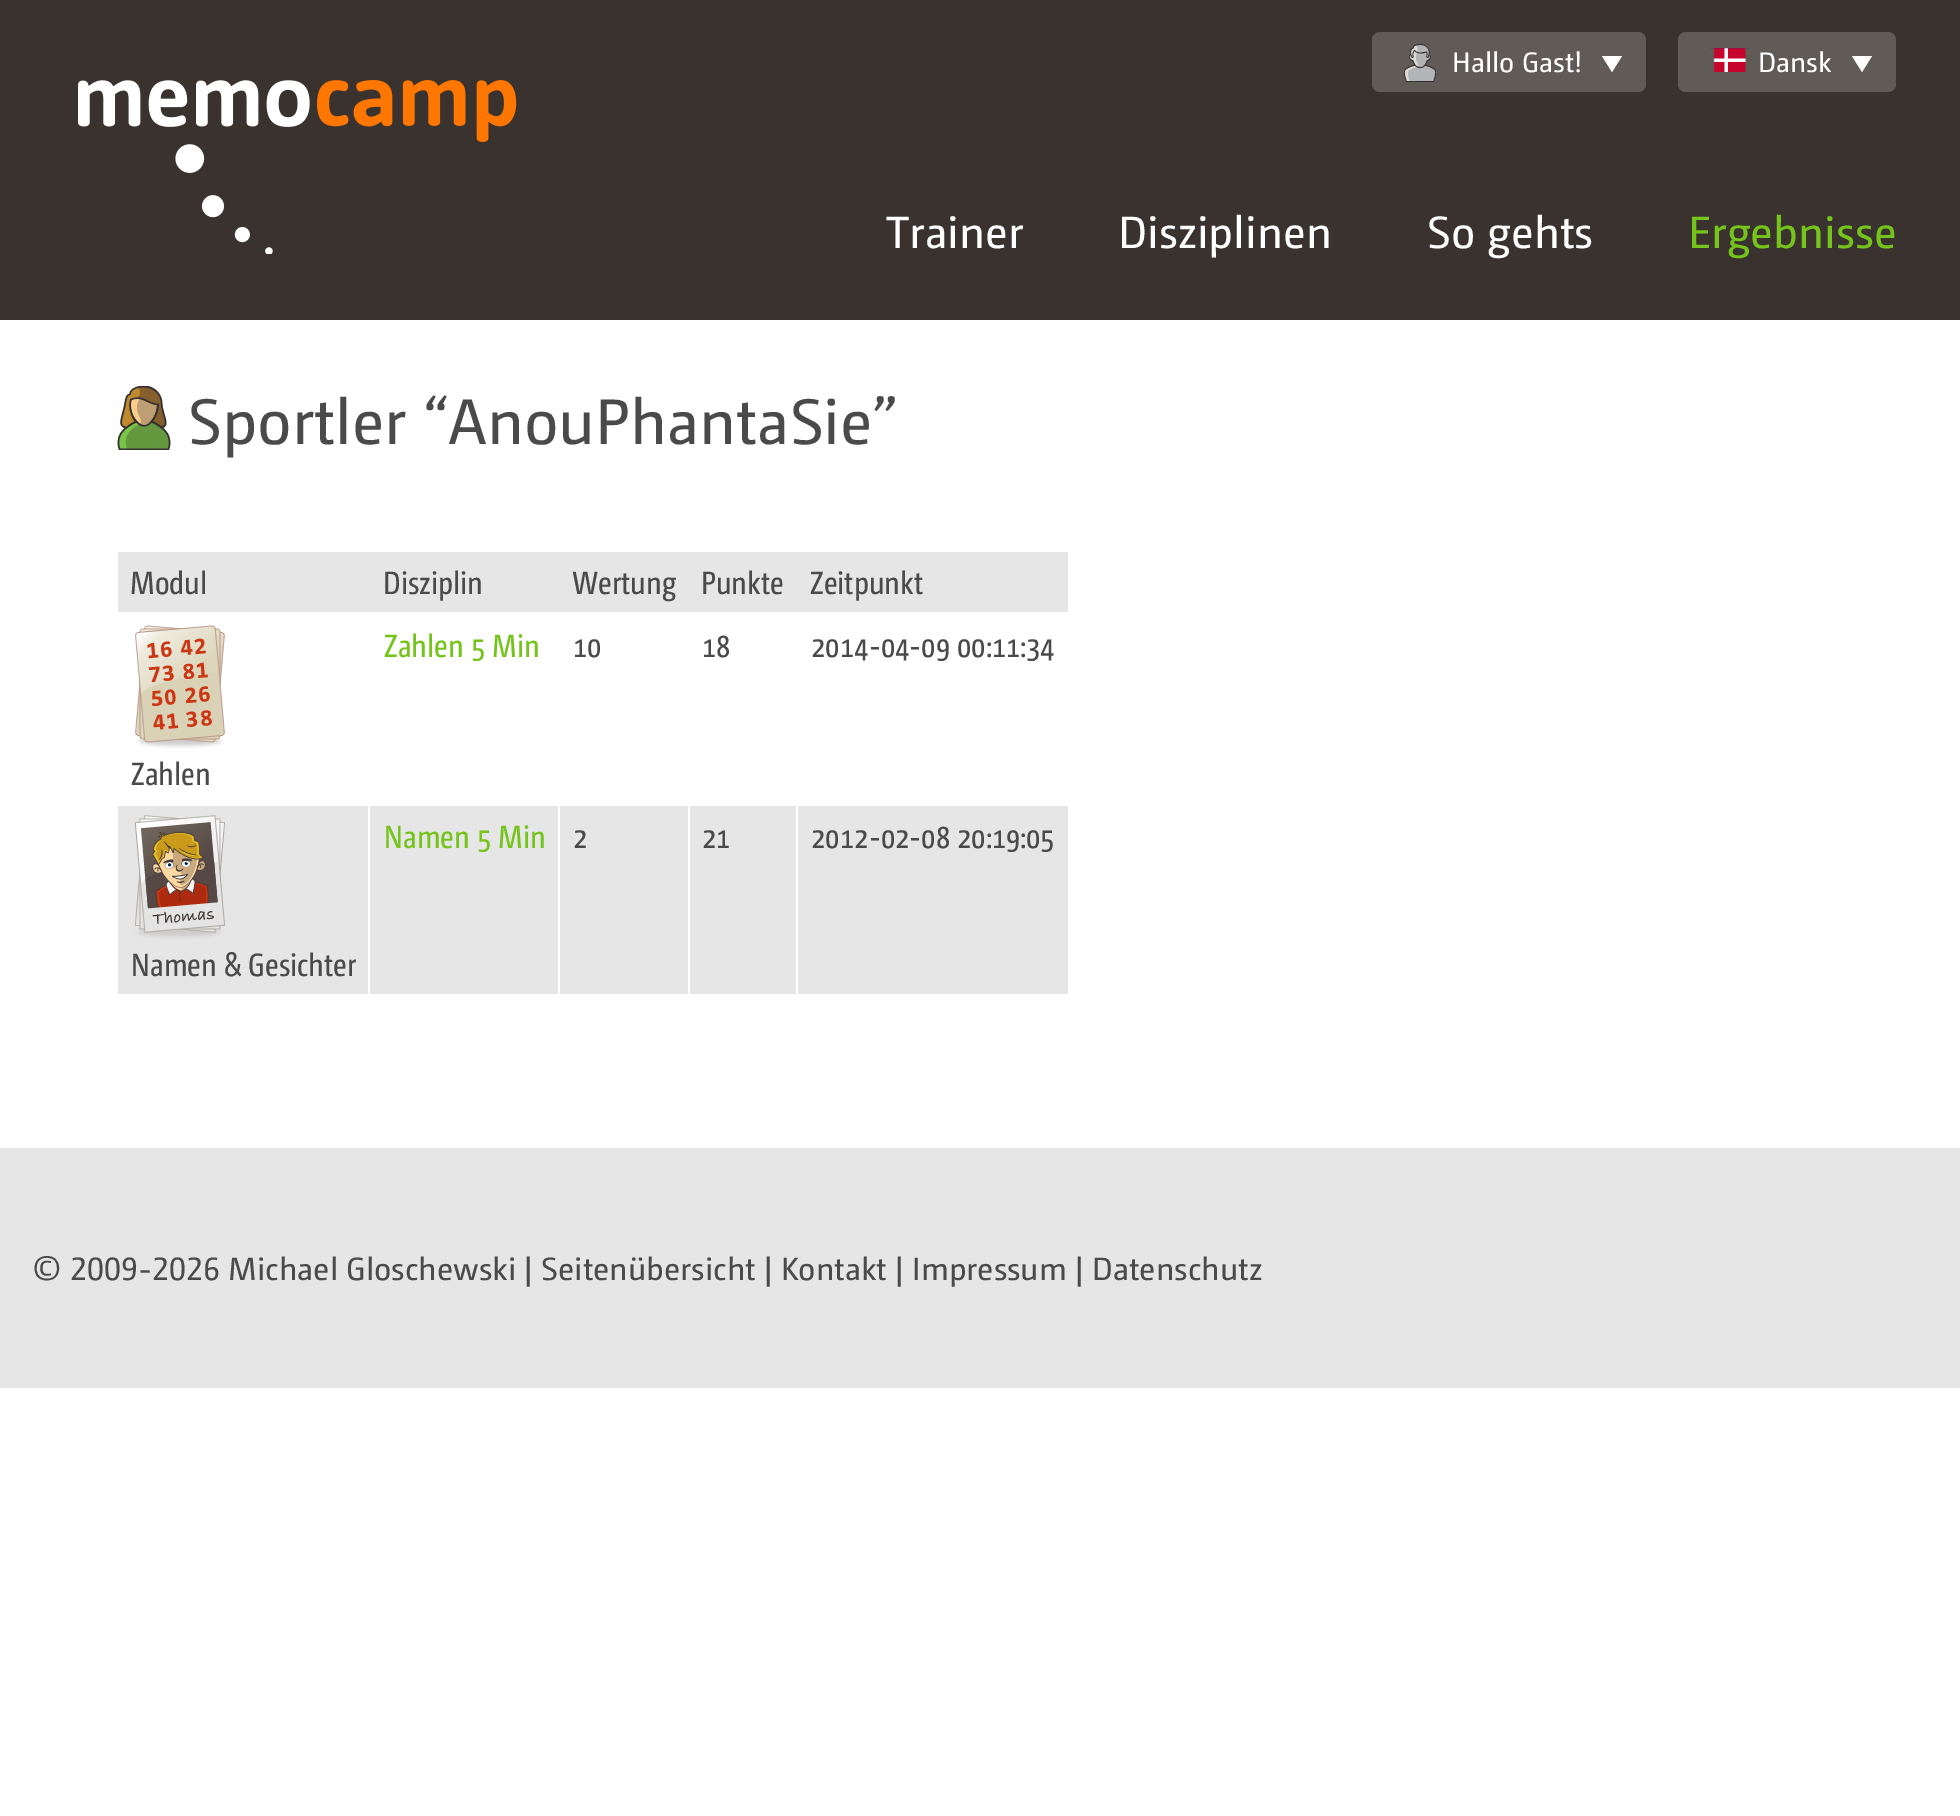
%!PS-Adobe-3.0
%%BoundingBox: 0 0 1960 1816
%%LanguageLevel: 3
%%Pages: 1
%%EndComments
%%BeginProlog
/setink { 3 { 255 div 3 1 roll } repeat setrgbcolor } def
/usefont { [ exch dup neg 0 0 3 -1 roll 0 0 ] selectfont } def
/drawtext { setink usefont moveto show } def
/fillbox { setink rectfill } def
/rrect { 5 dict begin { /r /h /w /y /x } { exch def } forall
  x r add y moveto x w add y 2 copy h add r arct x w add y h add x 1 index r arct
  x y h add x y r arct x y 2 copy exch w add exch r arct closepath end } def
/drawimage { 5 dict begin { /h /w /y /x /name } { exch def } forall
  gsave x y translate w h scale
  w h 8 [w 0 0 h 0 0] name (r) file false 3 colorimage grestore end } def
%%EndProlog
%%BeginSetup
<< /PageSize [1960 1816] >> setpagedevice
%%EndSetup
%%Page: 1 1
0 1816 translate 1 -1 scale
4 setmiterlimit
0 0 1960 1816 255 255 255 fillbox
0 0 1960 320 58 50 47 fillbox
(assets/img1.rgb) 78 80 439 174 drawimage
97 91 88 setink
1372 32 274 60 8 rrect fill
(assets/img2.rgb) 1404 44 32 38 drawimage
(Hallo Gast!) 1452 72 /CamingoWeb-Regular 28 255 255 255 drawtext
1602 56 moveto 1622 56 lineto 1612 72 lineto closepath fill
97 91 88 setink
1678 32 218 60 8 rrect fill
(assets/img3.rgb) 1710 48 40 24 drawimage
(Dansk) 1758 72 /CamingoWeb-Regular 28 255 255 255 drawtext
1852 56 moveto 1872 56 lineto 1862 72 lineto closepath fill
(Trainer) 886 248 /CamingoWeb-Regular 45 255 255 255 drawtext
(Disziplinen) 1118 248 /CamingoWeb-Regular 45 255 255 255 drawtext
(So gehts) 1427 248 /CamingoWeb-Regular 45 255 255 255 drawtext
(Ergebnisse) 1688 248 /CamingoWeb-Regular 45 116 196 28 drawtext
(assets/img4.rgb) 117 386 54 64 drawimage
(Sportler “AnouPhantaSie”) 188 444 /CamingoWeb-Regular 64 74 74 74 drawtext
118 552 950 60 230 230 230 fillbox
(Modul) 130 594 /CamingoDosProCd-Regular 32 74 74 74 drawtext
(Disziplin) 383 594 /CamingoDosProCd-Regular 32 74 74 74 drawtext
(Wertung) 572 594 /CamingoDosProCd-Regular 32 74 74 74 drawtext
(Punkte) 701 594 /CamingoDosProCd-Regular 32 74 74 74 drawtext
(Zeitpunkt) 810 594 /CamingoDosProCd-Regular 32 74 74 74 drawtext
(Zahlen 5 Min) 384 657 /CamingoDosProCd-Regular 32 116 196 28 drawtext
(10) 573 657 /CamingoDosProCd-Regular 32 74 74 74 drawtext
(18) 702 657 /CamingoDosProCd-Regular 32 74 74 74 drawtext
(2014-04-09 00:11:34) 811 657 /CamingoDosProCd-Regular 32 74 74 74 drawtext
(assets/img5.rgb) 135 625 90 124 drawimage
(Zahlen) 131 785 /CamingoDosProCd-Regular 32 74 74 74 drawtext
118 806 950 188 230 230 230 fillbox
368 804 2 192 255 255 255 fillbox
(Namen 5 Min) 384 848 /CamingoDosProCd-Regular 32 116 196 28 drawtext
558 804 2 192 255 255 255 fillbox
(2) 573 848 /CamingoDosProCd-Regular 32 74 74 74 drawtext
688 804 2 192 255 255 255 fillbox
(21) 702 848 /CamingoDosProCd-Regular 32 74 74 74 drawtext
796 804 2 192 255 255 255 fillbox
(2012-02-08 20:19:05) 811 848 /CamingoDosProCd-Regular 32 74 74 74 drawtext
(assets/img6.rgb) 134 815 91 124 drawimage
(Namen & Gesichter) 131 976 /CamingoDosProCd-Regular 32 74 74 74 drawtext
0 1148 1960 240 230 230 230 fillbox
(© 2009-2026 Michael Gloschewski | Seitenübersicht | Kontakt | Impressum | Datenschutz) 32 1280 /CamingoWeb-Regular 32 74 74 74 drawtext
showpage
%%EOF
